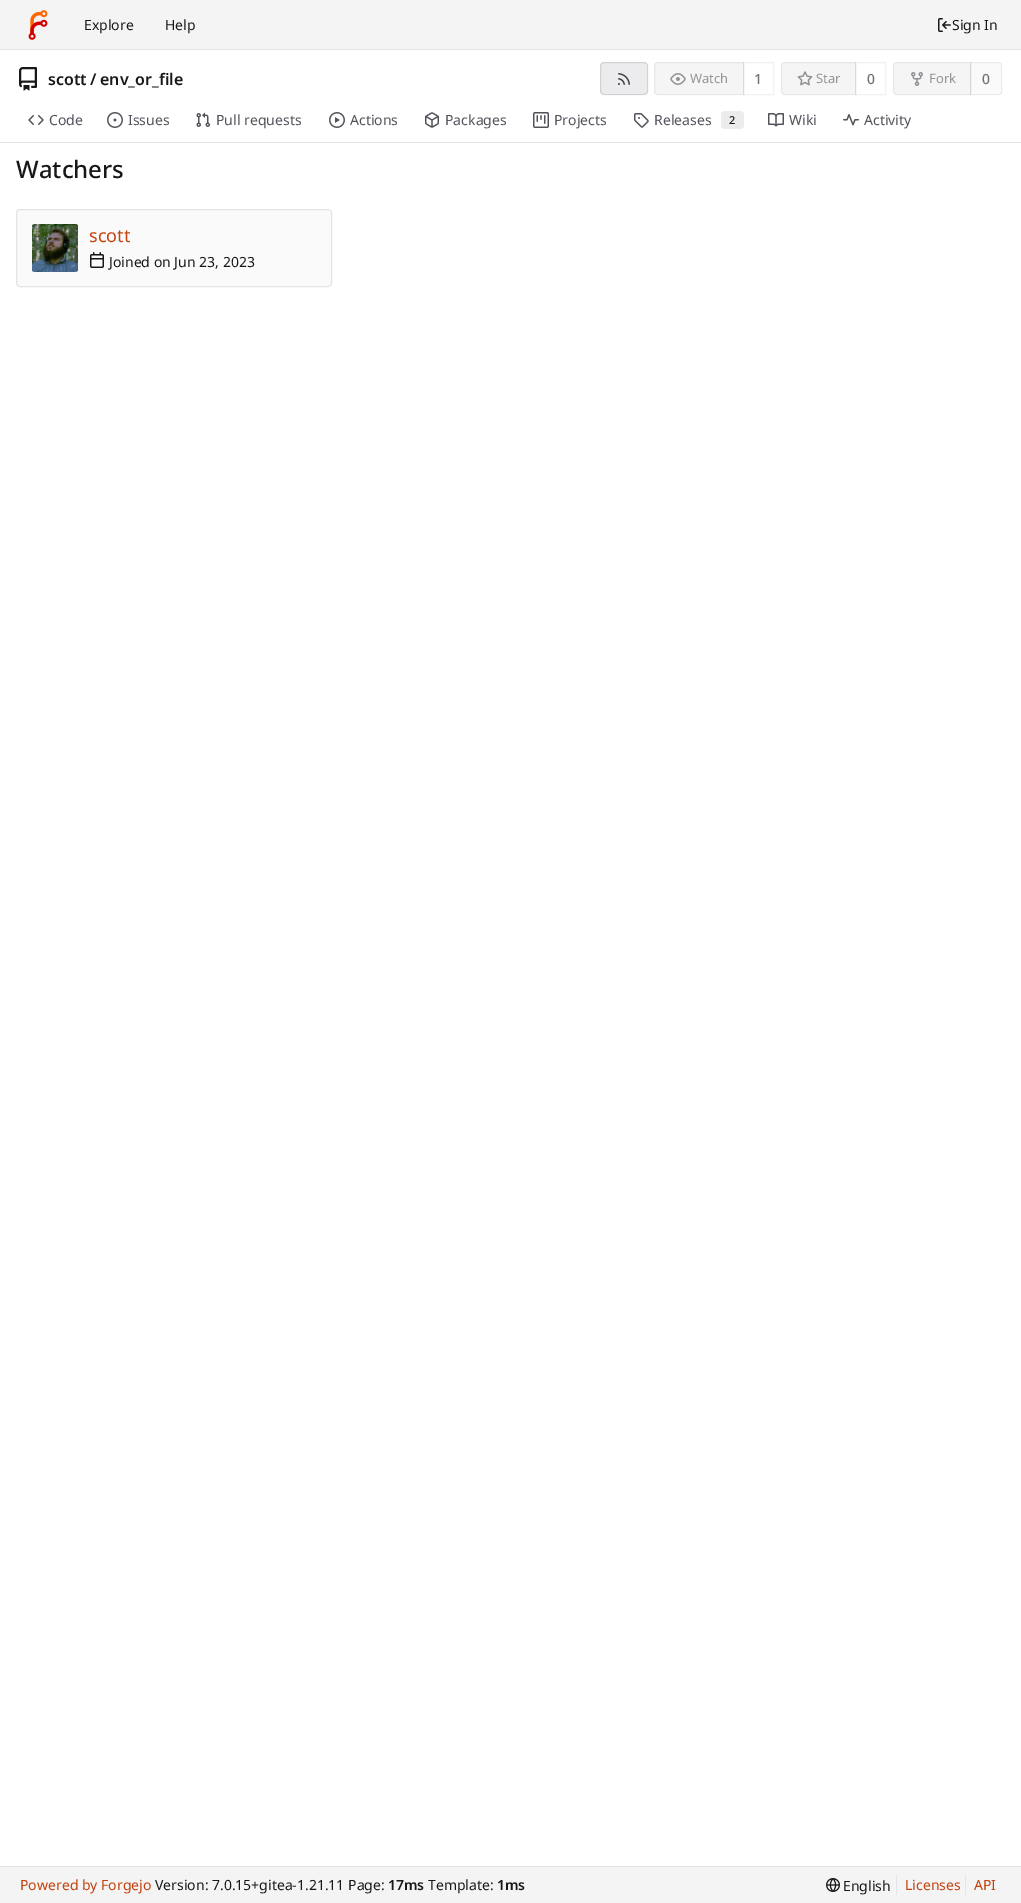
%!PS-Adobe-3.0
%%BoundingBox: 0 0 1021 1903
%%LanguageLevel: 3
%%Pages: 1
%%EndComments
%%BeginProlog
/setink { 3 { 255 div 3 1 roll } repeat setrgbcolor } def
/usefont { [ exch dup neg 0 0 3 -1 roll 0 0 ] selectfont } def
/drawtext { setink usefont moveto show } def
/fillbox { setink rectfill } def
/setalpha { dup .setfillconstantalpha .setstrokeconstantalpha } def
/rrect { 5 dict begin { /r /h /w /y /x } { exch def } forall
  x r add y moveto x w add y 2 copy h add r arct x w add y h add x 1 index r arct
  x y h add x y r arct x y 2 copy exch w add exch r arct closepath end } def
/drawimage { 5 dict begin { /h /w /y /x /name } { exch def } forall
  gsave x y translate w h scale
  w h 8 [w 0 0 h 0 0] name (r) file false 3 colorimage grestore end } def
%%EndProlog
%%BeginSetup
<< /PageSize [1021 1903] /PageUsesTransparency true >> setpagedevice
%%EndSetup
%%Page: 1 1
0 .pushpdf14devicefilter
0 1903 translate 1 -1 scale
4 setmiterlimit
0 0 1021 1903 255 255 255 fillbox
0 0 1021 49 244 244 245 fillbox
0 49 1021 1 228 228 231 fillbox
(assets/img1.rgb) 28 10 20 30 drawimage
(Explore) 84 30 /NotoSans-Regular 14 24 24 27 drawtext
(Help) 165 30 /NotoSans-Regular 14 24 24 27 drawtext
(assets/img2.rgb) 938 18 13 14 drawimage
(Sign In) 952 30 /NotoSans-Regular 14 24 24 27 drawtext
(assets/img3.rgb) 19 67 18 24 drawimage
(scott) 48 85 /NotoSans-SemiBold 16 24 24 27 drawtext
(/) 90 85 /NotoSans-SemiBold 16 24 24 27 drawtext
(env_or_file) 100 85 /NotoSans-SemiBold 16 24 24 27 drawtext
236 236 238 setink
600 62 48 33 4 rrect fill
0.11 setalpha
0 0 0 setink
600.5 62.5 47 32 3.5 rrect stroke
1 setalpha
(assets/img4.rgb) 618 73 12 12 drawimage
245 245 246 setink
658 62 moveto 744 62 lineto 744 95 lineto 658 95 lineto 656 95 654 93 654 91 curveto 654 66 lineto 654 64 656 62 658 62 curveto closepath fill
0.11 setalpha
115 115 115 setink
658 62.5 moveto 743.5 62.5 lineto 743.5 94.5 lineto 658 94.5 lineto 656 94.5 654.5 93 654.5 91 curveto 654.5 66 lineto 654.5 64 656 62.5 658 62.5 curveto closepath stroke
1 setalpha
(assets/img5.rgb) 670 73 16 12 drawimage
(Watch) 690 83 /NotoSans-Regular 13 149 149 153 drawtext
0.06 setalpha
0 0 0 setink
743.5 62.5 30 32 rectstroke
1 setalpha
(1) 754 84 /NotoSans-Medium 14 115 115 115 drawtext
245 245 246 setink
785 62 moveto 856 62 lineto 856 95 lineto 785 95 lineto 783 95 781 93 781 91 curveto 781 66 lineto 781 64 783 62 785 62 curveto closepath fill
0.11 setalpha
115 115 115 setink
785 62.5 moveto 855.5 62.5 lineto 855.5 94.5 lineto 785 94.5 lineto 783 94.5 781.5 93 781.5 91 curveto 781.5 66 lineto 781.5 64 783 62.5 785 62.5 curveto closepath stroke
1 setalpha
(assets/img6.rgb) 797 71 16 15 drawimage
(Star) 816 83 /NotoSans-Regular 13 149 149 153 drawtext
0.06 setalpha
0 0 0 setink
855.5 62.5 30 32 rectstroke
1 setalpha
(0) 867 84 /NotoSans-Medium 14 115 115 115 drawtext
245 245 246 setink
897 62 moveto 971 62 lineto 971 95 lineto 897 95 lineto 895 95 893 93 893 91 curveto 893 66 lineto 893 64 895 62 897 62 curveto closepath fill
0.11 setalpha
115 115 115 setink
897 62.5 moveto 970.5 62.5 lineto 970.5 94.5 lineto 897 94.5 lineto 895 94.5 893.5 93 893.5 91 curveto 893.5 66 lineto 893.5 64 895 62.5 897 62.5 curveto closepath stroke
1 setalpha
(assets/img7.rgb) 911 72 12 14 drawimage
(Fork) 929 83 /NotoSans-Regular 13 149 149 153 drawtext
0.04 setalpha
970 62 32 33 115 115 115 fillbox
0.11 setalpha
970.5 62.5 moveto 998 62.5 lineto 1000 62.5 1001.5 64 1001.5 66 curveto 1001.5 91 lineto 1001.5 93 1000 94.5 998 94.5 curveto 970.5 94.5 lineto closepath stroke
1 setalpha
(0) 982 84 /NotoSans-Medium 14 115 115 115 drawtext
(assets/img8.rgb) 28 115 16 10 drawimage
(Code) 49 125 /NotoSans-Regular 14 82 82 91 drawtext
(assets/img9.rgb) 107 112 16 16 drawimage
(Issues) 128 125 /NotoSans-Regular 14 82 82 91 drawtext
(assets/img10.rgb) 196 112 14 15 drawimage
(Pull requests) 216 125 /NotoSans-Regular 14 82 82 91 drawtext
(assets/img11.rgb) 329 112 16 16 drawimage
(Actions) 350 125 /NotoSans-Regular 14 82 82 91 drawtext
(assets/img12.rgb) 425 112 14 16 drawimage
(Packages) 445 125 /NotoSans-Regular 14 82 82 91 drawtext
(assets/img13.rgb) 533 112 16 16 drawimage
(Projects) 554 125 /NotoSans-Regular 14 82 82 91 drawtext
(assets/img14.rgb) 634 113 15 15 drawimage
(Releases) 654 125 /NotoSans-Regular 14 82 82 91 drawtext
236 236 236 setink
721 111 23 18 4 rrect fill
(2) 729 124 /NotoSans-Medium 11 24 24 27 drawtext
(assets/img15.rgb) 768 113 16 14 drawimage
(Wiki) 789 125 /NotoSans-Regular 14 82 82 91 drawtext
(assets/img16.rgb) 843 114 16 12 drawimage
(Activity) 864 125 /NotoSans-Regular 14 82 82 91 drawtext
0 142 1021 1 228 228 231 fillbox
(Watchers) 16 178 /NotoSans-Medium 24 24 24 27 drawtext
250 250 250 setink
16.5 209.5 315 77 3.5 rrect gsave fill grestore
228 228 231 setink
stroke
(assets/img17.rgb) 32 224 46 48 drawimage
(scott) 89 242 /NotoSans-Regular 18 194 65 12 drawtext
(assets/img18.rgb) 90 252 14 16 drawimage
(Joined on Jun 23, 2023) 109 267 /NotoSans-Regular 14 24 24 27 drawtext
0 1867 1021 36 244 244 245 fillbox
0 1866 1021 1 228 228 231 fillbox
(Powered by Forgejo) 20 1890 /NotoSans-Regular 14 194 65 12 drawtext
(Version: 7.0.15+gitea-1.21.11 Page:) 155 1890 /NotoSans-Regular 14 24 24 27 drawtext
(17ms) 388 1890 /NotoSans-SemiBold 14 24 24 27 drawtext
(Template:) 428 1890 /NotoSans-Regular 14 24 24 27 drawtext
(1ms) 497 1890 /NotoSans-SemiBold 14 24 24 27 drawtext
(assets/img19.rgb) 826 1878 14 14 drawimage
(English) 843 1891 /NotoSans-Regular 14 24 24 27 drawtext
896 1875 1 20 228 228 231 fillbox
(Licenses) 905 1890 /NotoSans-Regular 14 194 65 12 drawtext
965 1875 1 20 228 228 231 fillbox
(API) 974 1890 /NotoSans-Regular 14 194 65 12 drawtext
.poppdf14devicefilter showpage
%%EOF
